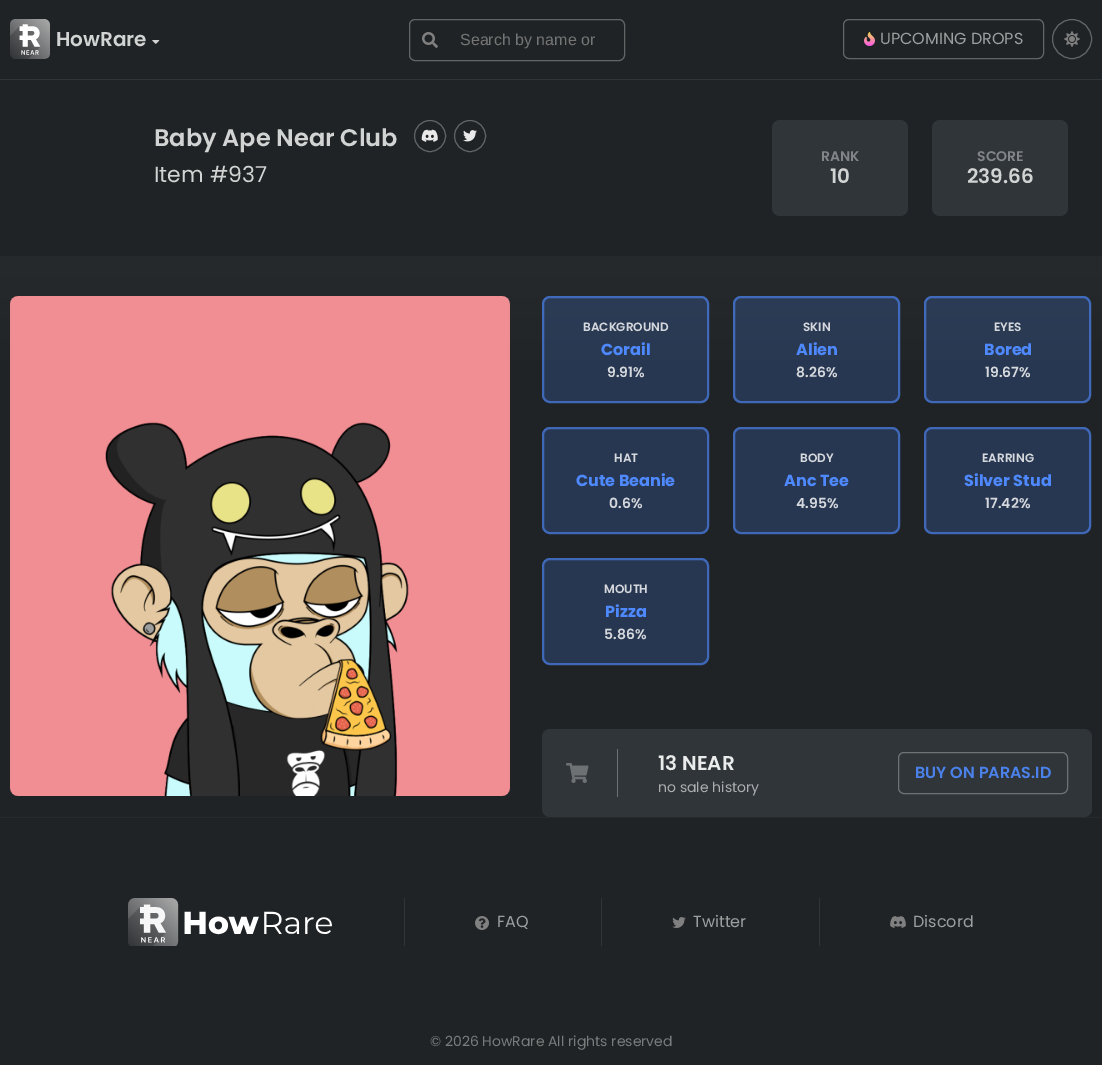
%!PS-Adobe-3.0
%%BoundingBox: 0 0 1102 1065
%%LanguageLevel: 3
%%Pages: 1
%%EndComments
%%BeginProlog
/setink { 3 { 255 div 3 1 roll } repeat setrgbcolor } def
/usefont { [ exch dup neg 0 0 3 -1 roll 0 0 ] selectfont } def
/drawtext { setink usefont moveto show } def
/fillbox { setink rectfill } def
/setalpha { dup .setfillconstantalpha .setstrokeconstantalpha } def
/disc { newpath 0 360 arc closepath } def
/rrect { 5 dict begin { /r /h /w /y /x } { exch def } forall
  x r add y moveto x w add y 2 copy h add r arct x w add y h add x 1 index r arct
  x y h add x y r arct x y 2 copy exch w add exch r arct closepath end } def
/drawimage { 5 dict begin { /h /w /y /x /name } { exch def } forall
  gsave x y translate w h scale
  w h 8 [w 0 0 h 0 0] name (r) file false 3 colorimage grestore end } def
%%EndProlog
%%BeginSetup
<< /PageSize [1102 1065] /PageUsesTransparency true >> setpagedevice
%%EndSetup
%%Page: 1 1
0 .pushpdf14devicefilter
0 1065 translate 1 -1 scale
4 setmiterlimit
0 0 1102 1065 31 35 37 fillbox
0 79 1102 1 47 53 56 fillbox
(assets/img1.rgb) 10 19 40 40 drawimage
(HowRare) 56 46 /Poppins-SemiBold 20 210 211 211 drawtext
(assets/img2.rgb) 152 40 8 4 drawimage
98 101 102 setink
409.5 19.5 215 41 5.5 rrect stroke
(assets/img3.rgb) 422 32 16 16 drawimage
(Search by name or) 460 45 /LiberationSans-Regular 16 117 117 117 drawtext
98 101 102 setink
843.5 19.5 200 39 5.5 rrect stroke
(assets/img4.rgb) 864 32 11 14 drawimage
(UPCOMING DROPS) 880 44 /Poppins-Regular 16 156 158 159 drawtext
(assets/img5.rgb) 1064 31 16 16 drawimage
98 101 102 setink
1072 39 19.5 disc stroke
(Baby Ape Near Club) 154 146 /Poppins-SemiBold 24 210 211 211 drawtext
98 101 102 setink
430 136 15.5 disc stroke
(assets/img6.rgb) 421 129 17 13 drawimage
470 136 15.5 disc stroke
(assets/img7.rgb) 463 130 14 12 drawimage
(Item #937) 154 182 /Poppins-Regular 22 210 211 211 drawtext
47 53 56 setink
772 120 136 96 8 rrect fill
(RANK) 821 161 /Poppins-SemiBold 14 130 134 136 drawtext
(10) 830 183 /Poppins-SemiBold 20 210 211 211 drawtext
47 53 56 setink
932 120 136 96 8 rrect fill
(SCORE) 977 161 /Poppins-SemiBold 14 130 134 136 drawtext
(239.66) 967 183 /Poppins-SemiBold 20 210 211 211 drawtext
gsave 0 256 moveto 1102 256 lineto 1102 360 lineto 0 360 lineto closepath clip newpath
<< /ShadingType 2 /ColorSpace /DeviceRGB /Coords [551 256 551 817] /Extend [true true] /Function << /FunctionType 3 /Domain [0 1] /Functions [<< /FunctionType 2 /Domain [0 1] /C0 [0.149 0.165 0.176] /C1 [0.122 0.137 0.145] /N 1 >> << /FunctionType 2 /Domain [0 1] /C0 [0.122 0.137 0.145] /C1 [0.122 0.137 0.145] /N 1 >>] /Bounds [0.27] /Encode [0 1 0 1] >> >> shfill grestore
(assets/img8.rgb) 10 296 500 500 drawimage
0.2 setalpha
78 137 255 setink
542 296 167 107 8 rrect fill
0.6 setalpha
2 setlinewidth
543 297 165 105 7 rrect stroke
1 setalpha
(BACKGROUND) 583 331 /Poppins-SemiBold 12 213 216 221 drawtext
(Corail) 601 355 /Poppins-Bold 16 78 137 255 drawtext
(9.91%) 607 377 /Poppins-SemiBold 14 213 216 221 drawtext
0.2 setalpha
78 137 255 setink
733 296 167 107 8 rrect fill
0.6 setalpha
734 297 165 105 7 rrect stroke
1 setalpha
(SKIN) 803 331 /Poppins-SemiBold 12 213 216 221 drawtext
(Alien) 796 355 /Poppins-Bold 16 78 137 255 drawtext
(8.26%) 796 377 /Poppins-SemiBold 14 213 216 221 drawtext
0.2 setalpha
78 137 255 setink
924 296 167 107 8 rrect fill
0.6 setalpha
925 297 165 105 7 rrect stroke
1 setalpha
(EYES) 994 331 /Poppins-SemiBold 12 213 216 221 drawtext
(Bored) 984 355 /Poppins-Bold 16 78 137 255 drawtext
(19.67%) 985 377 /Poppins-SemiBold 14 213 216 221 drawtext
40 55 81 setink
542 427 167 107 8 rrect fill
0.6 setalpha
78 137 255 setink
543 428 165 105 7 rrect stroke
1 setalpha
(HAT) 614 462 /Poppins-SemiBold 12 213 216 221 drawtext
(Cute Beanie) 576 486 /Poppins-Bold 16 78 137 255 drawtext
(0.6%) 609 508 /Poppins-SemiBold 14 213 216 221 drawtext
40 55 81 setink
733 427 167 107 8 rrect fill
0.6 setalpha
78 137 255 setink
734 428 165 105 7 rrect stroke
1 setalpha
(BODY) 800 462 /Poppins-SemiBold 12 213 216 221 drawtext
(Anc Tee) 784 486 /Poppins-Bold 16 78 137 255 drawtext
(4.95%) 796 508 /Poppins-SemiBold 14 213 216 221 drawtext
40 55 81 setink
924 427 167 107 8 rrect fill
0.6 setalpha
78 137 255 setink
925 428 165 105 7 rrect stroke
1 setalpha
(EARRING) 982 462 /Poppins-SemiBold 12 213 216 221 drawtext
(Silver Stud) 964 486 /Poppins-Bold 16 78 137 255 drawtext
(17.42%) 985 508 /Poppins-SemiBold 14 213 216 221 drawtext
40 55 81 setink
542 558 167 107 8 rrect fill
0.6 setalpha
78 137 255 setink
543 559 165 105 7 rrect stroke
1 setalpha
(MOUTH) 604 593 /Poppins-SemiBold 12 213 216 221 drawtext
(Pizza) 605 617 /Poppins-Bold 16 78 137 255 drawtext
(5.86%) 604 639 /Poppins-SemiBold 14 213 216 221 drawtext
47 53 56 setink
542 729 550 88 8 rrect fill
(assets/img9.rgb) 566 763 23 20 drawimage
617 749 1 48 109 114 116 fillbox
(13 NEAR) 658 770 /Poppins-SemiBold 20 234 235 235 drawtext
(no sale history) 658 792 /Poppins-Regular 14 172 174 175 drawtext
109 114 116 setink
1 setlinewidth
898.5 752.5 169 41 5.5 rrect stroke
(BUY ON PARAS.ID) 915 778 /Poppins-SemiBold 16 75 129 235 drawtext
0 817 1102 1 41 41 41 fillbox
(assets/img10.rgb) 128 898 204 48 drawimage
404 898 1 48 47 53 56 fillbox
(assets/img11.rgb) 475 916 14 14 drawimage
(FAQ) 497 927 /Poppins-Regular 16 156 158 159 drawtext
601 898 1 48 47 53 56 fillbox
(assets/img12.rgb) 672 917 14 11 drawimage
(Twitter) 693 927 /Poppins-Regular 16 156 158 159 drawtext
819 898 1 48 47 53 56 fillbox
(assets/img13.rgb) 890 916 16 12 drawimage
(Discord) 913 927 /Poppins-Regular 16 156 158 159 drawtext
(© 2026 HowRare All rights reserved) 430 1046 /Poppins-Regular 14 121 123 124 drawtext
.poppdf14devicefilter showpage
%%EOF
